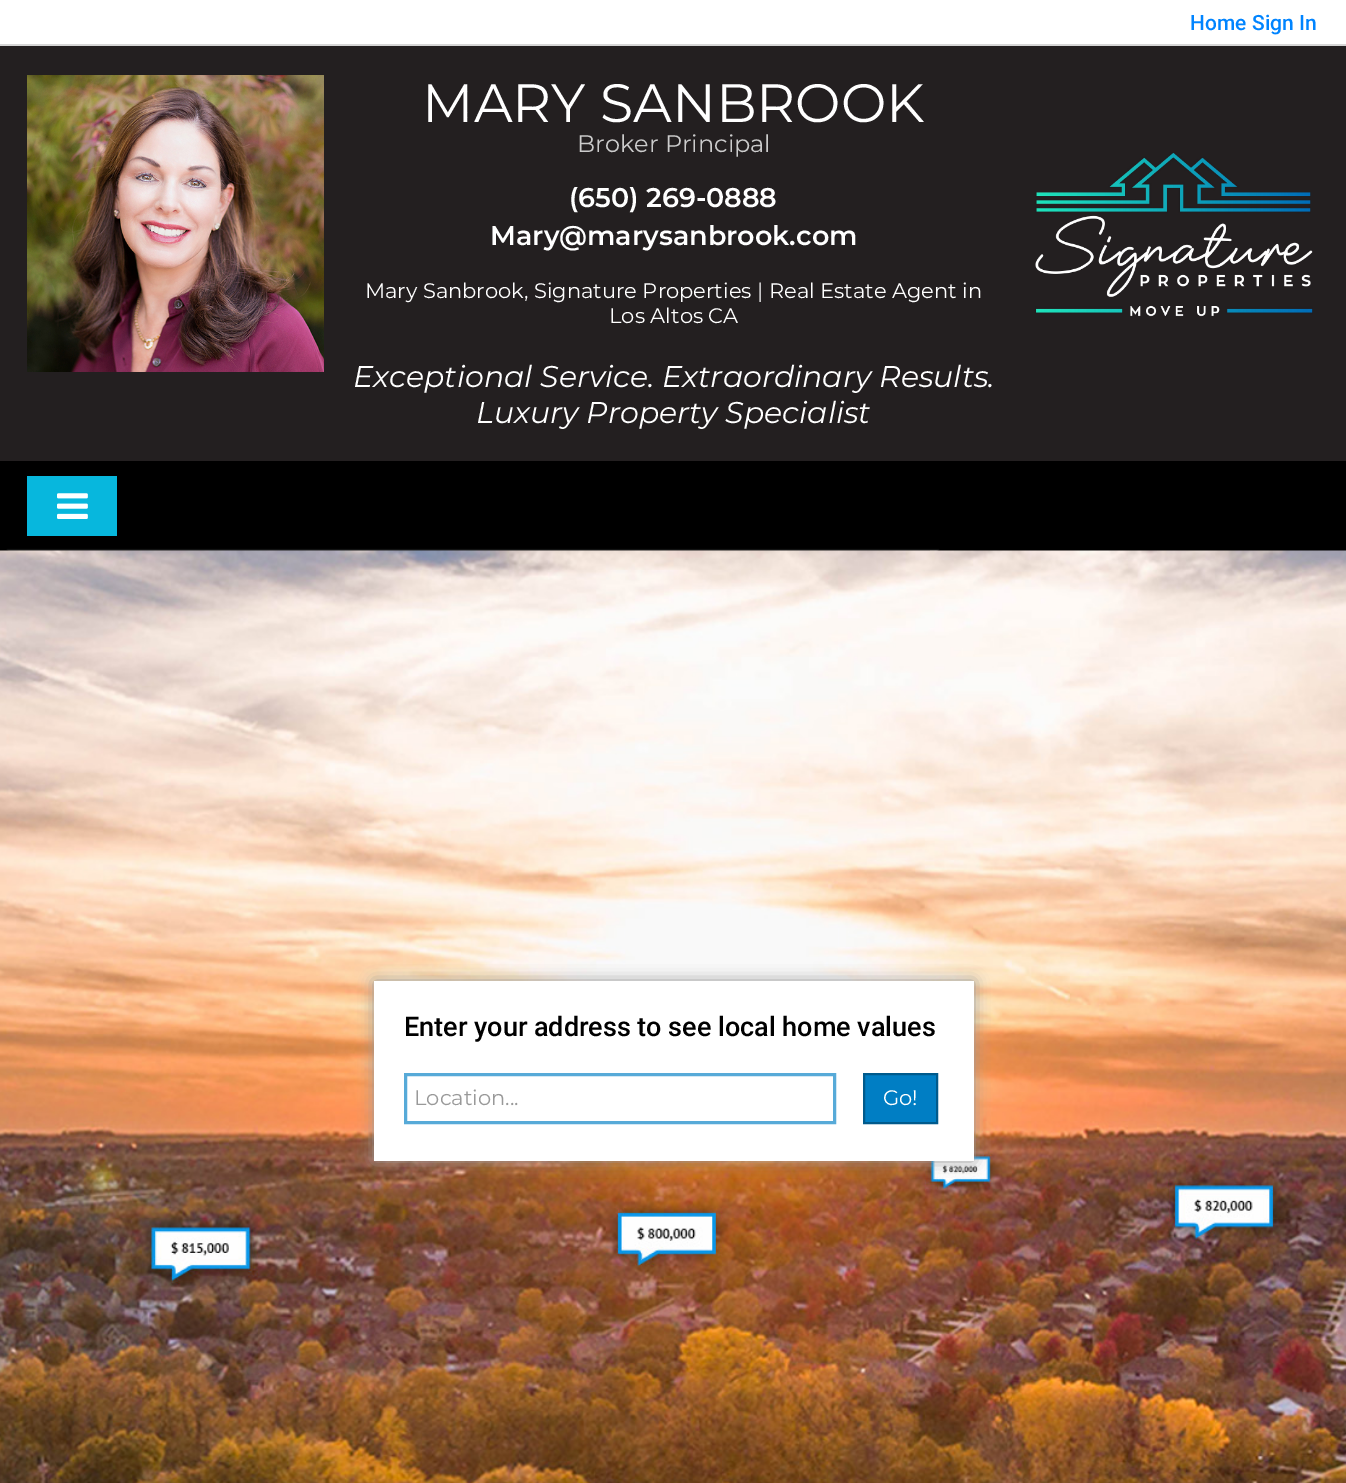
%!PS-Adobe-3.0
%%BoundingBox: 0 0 1346 1483
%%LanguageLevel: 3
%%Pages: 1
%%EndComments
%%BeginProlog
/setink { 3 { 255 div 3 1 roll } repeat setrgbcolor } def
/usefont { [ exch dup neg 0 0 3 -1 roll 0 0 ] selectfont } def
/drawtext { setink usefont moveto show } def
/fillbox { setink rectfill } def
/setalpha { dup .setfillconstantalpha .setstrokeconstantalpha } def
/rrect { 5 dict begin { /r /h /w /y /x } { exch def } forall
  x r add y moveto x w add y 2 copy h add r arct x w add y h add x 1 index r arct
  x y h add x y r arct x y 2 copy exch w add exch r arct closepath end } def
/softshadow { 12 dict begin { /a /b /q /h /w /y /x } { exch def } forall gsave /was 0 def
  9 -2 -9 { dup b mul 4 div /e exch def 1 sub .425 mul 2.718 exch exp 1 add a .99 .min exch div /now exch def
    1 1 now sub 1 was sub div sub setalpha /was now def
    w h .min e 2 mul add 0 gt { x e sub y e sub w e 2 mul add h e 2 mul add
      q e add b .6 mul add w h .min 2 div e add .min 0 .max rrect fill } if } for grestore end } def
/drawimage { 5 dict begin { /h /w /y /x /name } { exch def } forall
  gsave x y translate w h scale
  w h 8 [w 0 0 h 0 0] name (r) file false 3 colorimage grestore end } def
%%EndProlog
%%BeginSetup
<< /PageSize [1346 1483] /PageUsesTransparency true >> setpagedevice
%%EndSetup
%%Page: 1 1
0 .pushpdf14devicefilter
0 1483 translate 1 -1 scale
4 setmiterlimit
0 0 1346 1483 255 255 255 fillbox
0 44 1346 2 214 214 214 fillbox
(Home) 1190 30 /Roboto-Medium 21 0 132 255 drawtext
(Sign In) 1252 30 /Roboto-Medium 21 0 132 255 drawtext
0 46 1346 415 35 31 32 fillbox
(assets/img1.rgb) 27 75 297 297 drawimage
(MARY SANBROOK) 422 122 /Montserrat-Regular 54 255 255 255 drawtext
(Broker Principal) 577 152 /Montserrat-Regular 24 204 204 204 drawtext
(\(650\) 269-0888) 569 207 /Montserrat-SemiBold 27 255 255 255 drawtext
(Mary@marysanbrook.com) 490 245 /Montserrat-SemiBold 27 255 255 255 drawtext
(Mary Sanbrook, Signature Properties | Real Estate Agent in) 365 298 /Montserrat-Regular 21 255 255 255 drawtext
(Los Altos CA) 609 323 /Montserrat-Regular 21 255 255 255 drawtext
(Exceptional Service. Extraordinary Results.) 353 387 /Montserrat-Italic 30 255 255 255 drawtext
(Luxury Property Specialist) 476 423 /Montserrat-Italic 30 255 255 255 drawtext
(assets/img2.rgb) 1035 152 278 165 drawimage
0 461 1346 90 0 0 0 fillbox
27 476 90 60 7 183 221 fillbox
(assets/img3.rgb) 57 493 31 26 drawimage
239 240 242 setink
8 551 930 87 0 1 0.95 softshadow
(assets/img4.rgb) 0 550 1346 933 drawimage
153 153 153 setink
374 981 600 180 0 7.5 1 softshadow
374 981 600 180 255 255 255 fillbox
(Enter your address to see local home values) 404 1036 /Roboto-Medium 27 0 0 0 drawtext
87 170 216 setink
3 setlinewidth
405.5 1074.5 429 48 rectstroke
(Location...) 414 1105 /Montserrat-Regular 21 153 153 153 drawtext
0 126 196 setink
864 1074 moveto 937 1074 lineto 937 1123 lineto 864 1123 lineto closepath gsave fill grestore
0 90 140 setink
2 setlinewidth
stroke
(Go!) 883 1105 /Montserrat-Regular 21 255 255 255 drawtext
.poppdf14devicefilter showpage
%%EOF
